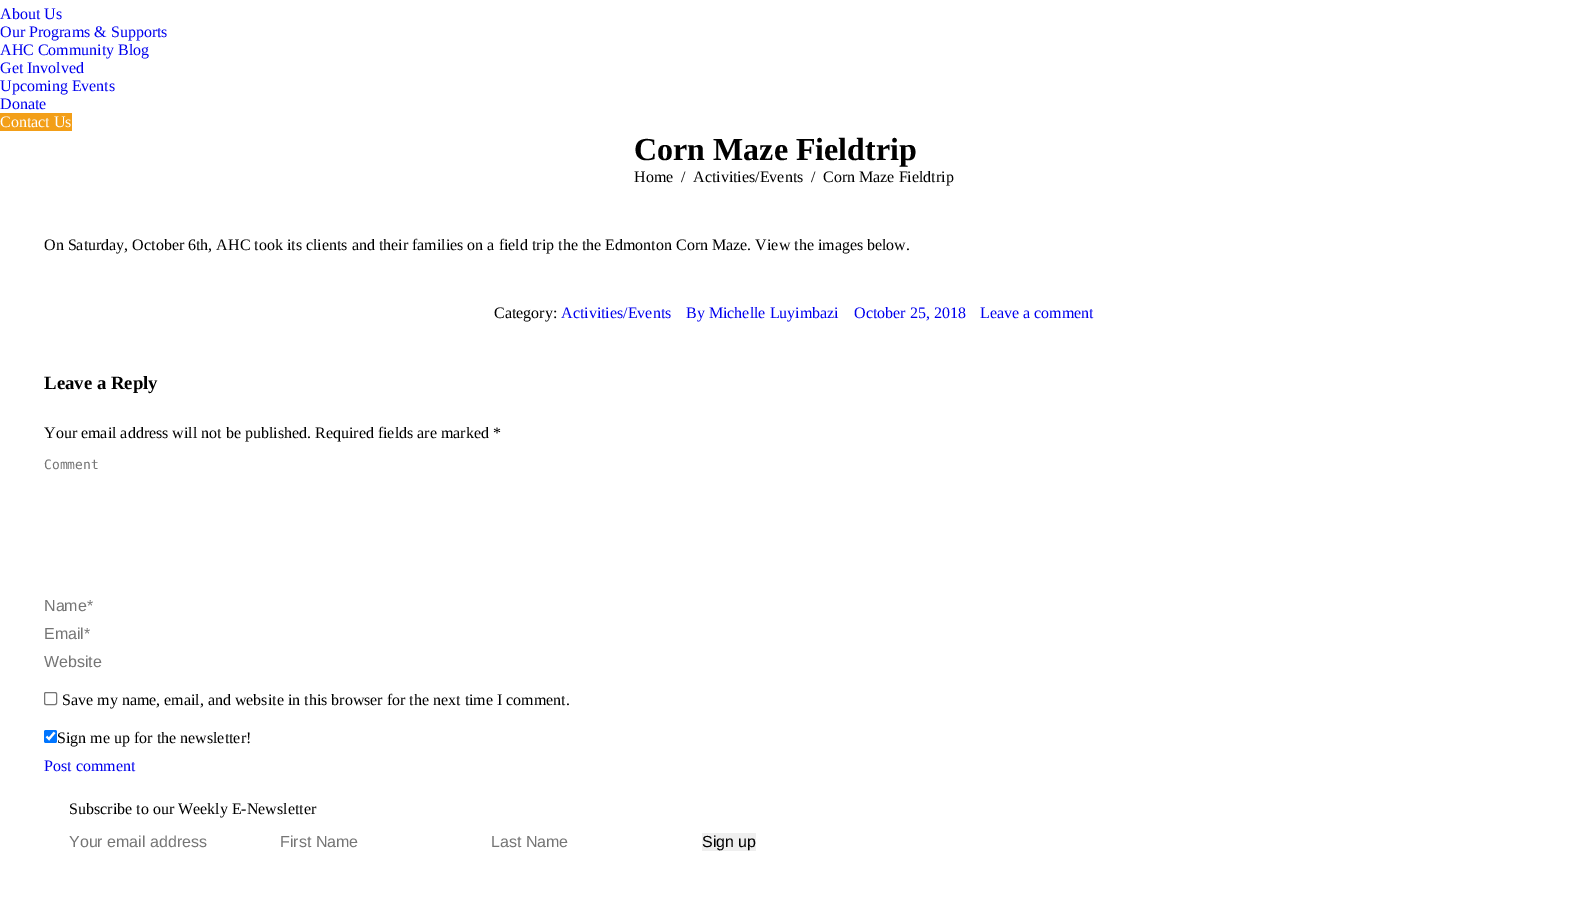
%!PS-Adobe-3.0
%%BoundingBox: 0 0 1588 924
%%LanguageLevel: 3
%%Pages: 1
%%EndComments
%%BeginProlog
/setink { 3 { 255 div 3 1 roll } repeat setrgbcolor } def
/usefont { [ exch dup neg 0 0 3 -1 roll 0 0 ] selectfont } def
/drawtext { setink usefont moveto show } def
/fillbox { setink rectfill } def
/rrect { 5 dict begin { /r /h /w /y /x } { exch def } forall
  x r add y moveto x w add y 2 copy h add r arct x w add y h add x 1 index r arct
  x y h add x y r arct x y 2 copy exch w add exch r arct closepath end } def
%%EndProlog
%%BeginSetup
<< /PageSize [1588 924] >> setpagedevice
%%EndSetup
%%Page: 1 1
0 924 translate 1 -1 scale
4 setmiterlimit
0 0 1588 924 255 255 255 fillbox
(About Us) 0 19 /LiberationSerif-Regular 16 0 0 238 drawtext
(Our Programs & Supports) 0 37 /LiberationSerif-Regular 16 0 0 238 drawtext
(AHC Community Blog) 0 55 /LiberationSerif-Regular 16 0 0 238 drawtext
(Get Involved) 0 73 /LiberationSerif-Regular 16 0 0 238 drawtext
(Upcoming Events) 0 91 /LiberationSerif-Regular 16 0 0 238 drawtext
(Donate) 0 109 /LiberationSerif-Regular 16 0 0 238 drawtext
0 113 72 18 243 159 24 fillbox
(Contact Us) 0 127 /LiberationSerif-Regular 16 255 255 255 drawtext
(Corn Maze Fieldtrip) 634 160 /LiberationSerif-Bold 32 0 0 0 drawtext
(Home) 634 182 /LiberationSerif-Regular 16 0 0 0 drawtext
(/) 681 182 /LiberationSerif-Regular 16 0 0 0 drawtext
(Activities/Events) 693 182 /LiberationSerif-Regular 16 0 0 0 drawtext
(/) 811 182 /LiberationSerif-Regular 16 0 0 0 drawtext
(Corn Maze Fieldtrip) 823 182 /LiberationSerif-Regular 16 0 0 0 drawtext
(On Saturday, October 6th, AHC took its clients and their families on a field trip the the Edmonton Corn Maze. View the images below.) 44 250 /LiberationSerif-Regular 16 0 0 0 drawtext
(Category:) 494 318 /LiberationSerif-Regular 16 0 0 0 drawtext
(Activities/Events) 561 318 /LiberationSerif-Regular 16 0 0 238 drawtext
(By Michelle Luyimbazi) 686 318 /LiberationSerif-Regular 16 0 0 238 drawtext
(October 25, 2018) 854 318 /LiberationSerif-Regular 16 0 0 238 drawtext
(Leave a comment) 980 318 /LiberationSerif-Regular 16 0 0 238 drawtext
(Leave a Reply) 44 389 /LiberationSerif-Bold 18.75 0 0 0 drawtext
(Your email address will not be published. Required fields are marked *) 44 438 /LiberationSerif-Regular 16 0 0 0 drawtext
(Comment) 44 469 /DejaVuSansMono-Regular 13 117 117 117 drawtext
(Name*) 44 611 /LiberationSans-Regular 16 117 117 117 drawtext
(Email*) 44 639 /LiberationSans-Regular 16 117 117 117 drawtext
(Website) 44 667 /LiberationSans-Regular 16 117 117 117 drawtext
118 118 118 setink
44.5 692.5 12 12 1.5 rrect stroke
(Save my name, email, and website in this browser for the next time I comment.) 62 705 /LiberationSerif-Regular 16 0 0 0 drawtext
0 117 255 setink
44 730 13 13 2 rrect fill
255 255 255 setink
2.1 setlinewidth
46.5 736.5 moveto 49 739 lineto 54.5 732.5 lineto stroke
(Sign me up for the newsletter!) 57 743 /LiberationSerif-Regular 16 0 0 0 drawtext
(Post comment) 44 771 /LiberationSerif-Regular 16 0 0 238 drawtext
(Subscribe to our Weekly E-Newsletter) 69 814 /LiberationSerif-Regular 16 0 0 0 drawtext
(Your email address) 69 847 /LiberationSans-Regular 16 117 117 117 drawtext
(First Name) 280 847 /LiberationSans-Regular 16 117 117 117 drawtext
(Last Name) 491 847 /LiberationSans-Regular 16 117 117 117 drawtext
702 833 54 18 239 239 239 fillbox
(Sign up) 702 847 /LiberationSans-Regular 16 0 0 0 drawtext
showpage
%%EOF
